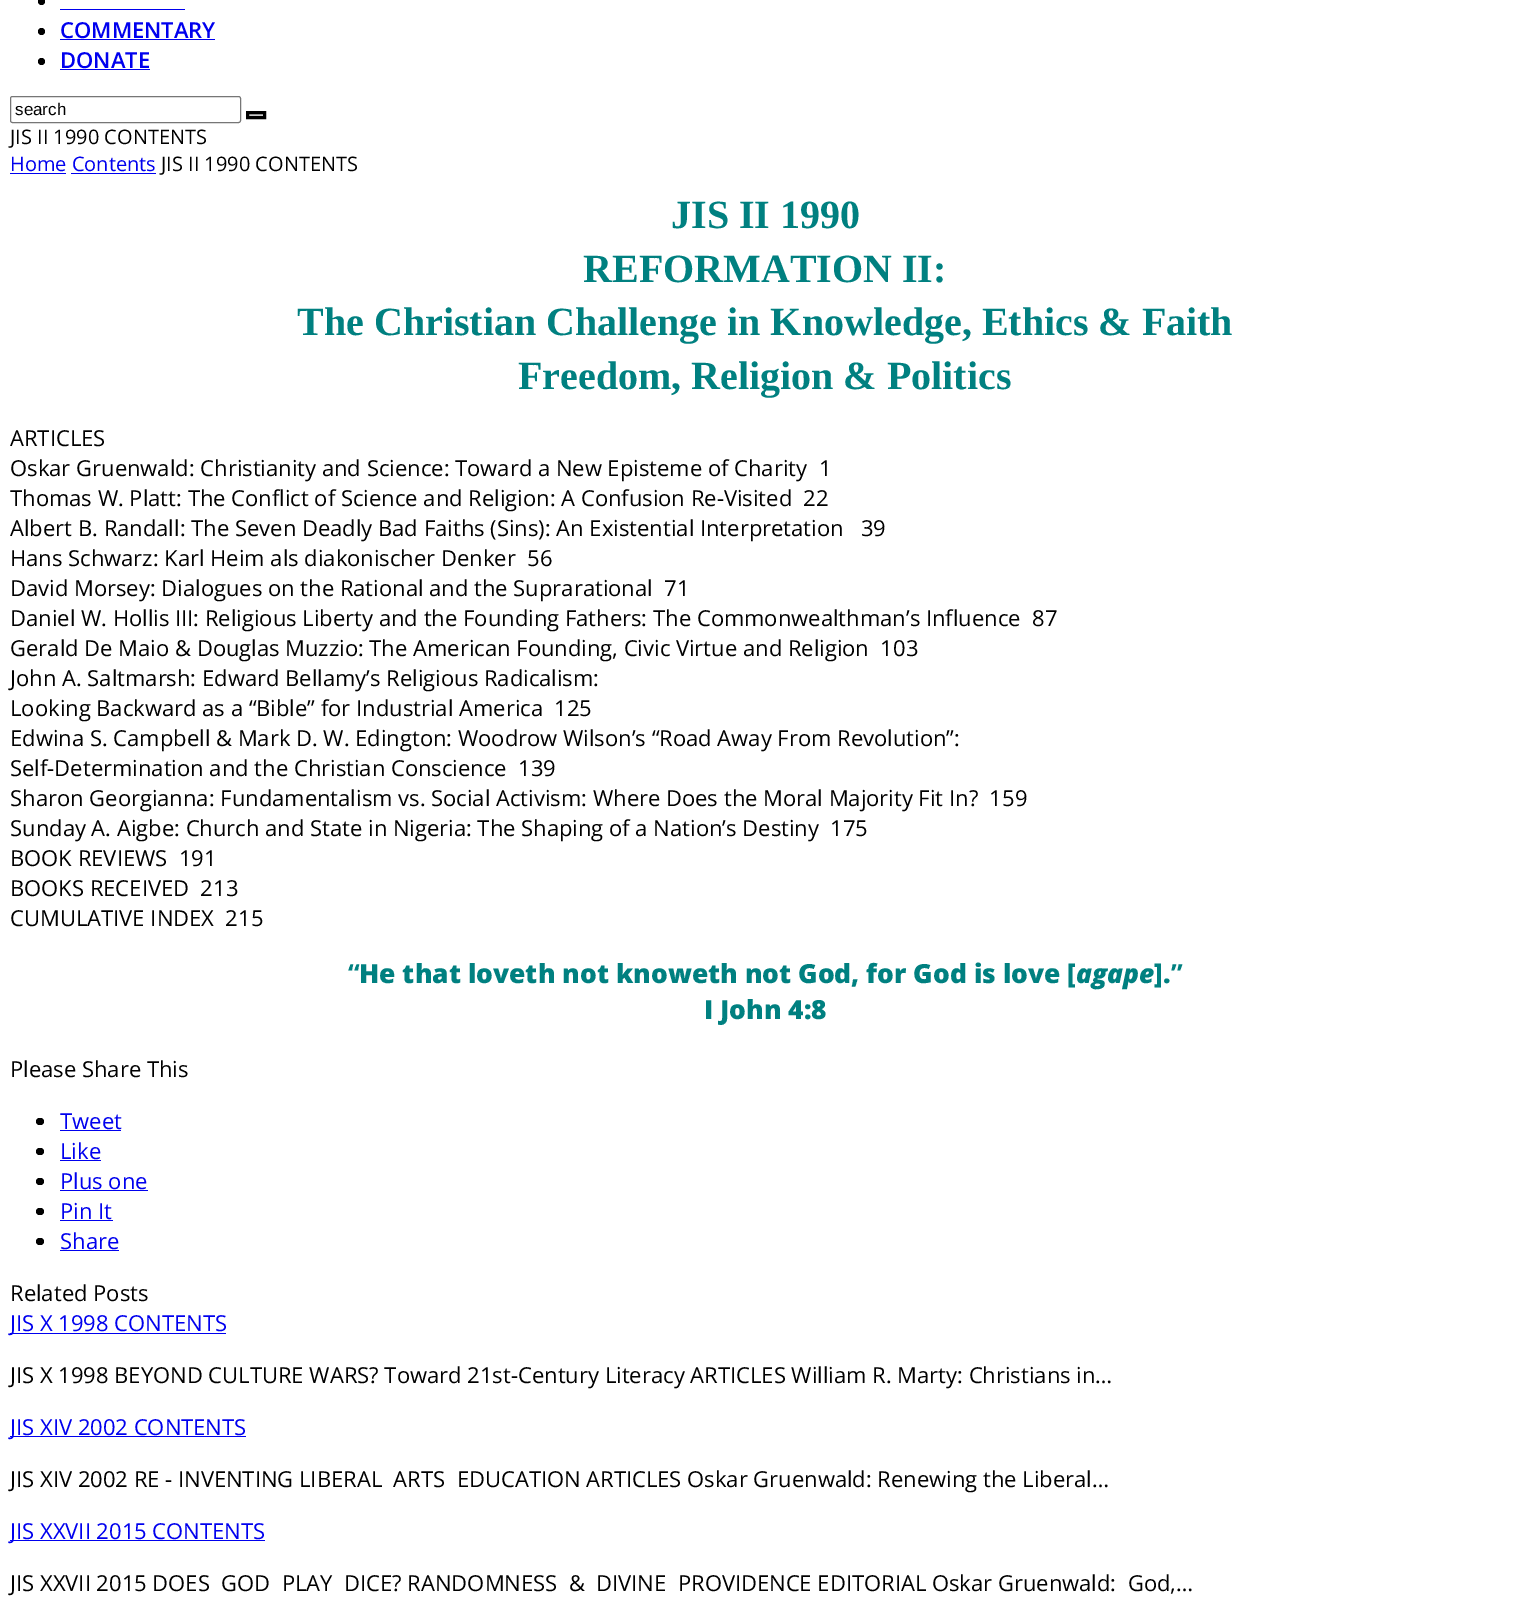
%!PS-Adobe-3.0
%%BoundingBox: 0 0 1529 1610
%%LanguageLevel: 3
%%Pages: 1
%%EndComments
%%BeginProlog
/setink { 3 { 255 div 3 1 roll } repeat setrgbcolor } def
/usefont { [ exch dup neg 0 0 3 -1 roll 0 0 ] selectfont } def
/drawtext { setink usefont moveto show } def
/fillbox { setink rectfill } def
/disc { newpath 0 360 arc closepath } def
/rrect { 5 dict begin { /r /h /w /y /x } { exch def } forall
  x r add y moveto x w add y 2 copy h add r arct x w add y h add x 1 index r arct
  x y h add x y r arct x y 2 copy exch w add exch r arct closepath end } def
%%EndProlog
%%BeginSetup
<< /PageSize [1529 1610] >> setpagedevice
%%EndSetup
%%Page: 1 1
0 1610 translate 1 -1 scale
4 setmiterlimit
0 0 1529 1610 255 255 255 fillbox
0 0 0 setink
41.5 1.5 3.5 disc fill
60 9 125 1 0 0 238 fillbox
0 0 0 setink
41.5 31.5 3.5 disc fill
(COMMENTARY) 60 38 /OpenSans-SemiBold 22 0 0 238 drawtext
60 39 155 1 0 0 238 fillbox
0 0 0 setink
41.5 61.5 3.5 disc fill
(DONATE) 60 68 /OpenSans-SemiBold 22 0 0 238 drawtext
60 69 90 1 0 0 238 fillbox
118 118 118 setink
10.5 96.5 230 26 2 rrect stroke
(search) 15 115 /LiberationSans-Regular 17 0 0 0 drawtext
204 204 204 setink
247.5 112.5 moveto 264.5 112.5 lineto 264.5 117.5 lineto 247.5 117.5 lineto closepath gsave fill grestore
0 0 0 setink
3 setlinewidth
stroke
(JIS II 1990 CONTENTS) 10 144 /OpenSans-Regular 20 0 0 0 drawtext
(Home Contents) 10 171 /OpenSans-Regular 20 0 0 238 drawtext
10 173 56 1 0 0 238 fillbox
(JIS II 1990 CONTENTS) 161 171 /OpenSans-Regular 20 0 0 0 drawtext
71 173 85 1 0 0 238 fillbox
(JIS II 1990) 671 228 /LiberationSerif-Bold 40 0 128 128 drawtext
(REFORMATION II:) 583 282 /LiberationSerif-Bold 40 0 128 128 drawtext
(The Christian Challenge in Knowledge, Ethics & Faith) 297 335 /LiberationSerif-Bold 40 0 128 128 drawtext
(Freedom, Religion & Politics) 518 389 /LiberationSerif-Bold 40 0 128 128 drawtext
(ARTICLES) 10 446 /OpenSans-Regular 22 0 0 0 drawtext
(Oskar Gruenwald: Christianity and Science: Toward a New Episteme of Charity  1) 10 476 /OpenSans-Regular 22 0 0 0 drawtext
(Thomas W. Platt: The Conflict of Science and Religion: A Confusion Re-Visited  22) 10 506 /OpenSans-Regular 22 0 0 0 drawtext
(Albert B. Randall: The Seven Deadly Bad Faiths \(Sins\): An Existential Interpretation   39) 10 536 /OpenSans-Regular 22 0 0 0 drawtext
(Hans Schwarz: Karl Heim als diakonischer Denker  56) 10 566 /OpenSans-Regular 22 0 0 0 drawtext
(David Morsey: Dialogues on the Rational and the Suprarational  71) 10 596 /OpenSans-Regular 22 0 0 0 drawtext
(Daniel W. Hollis III: Religious Liberty and the Founding Fathers: The Commonwealthman’s Influence  87) 10 626 /OpenSans-Regular 22 0 0 0 drawtext
(Gerald De Maio & Douglas Muzzio: The American Founding, Civic Virtue and Religion  103) 10 656 /OpenSans-Regular 22 0 0 0 drawtext
(John A. Saltmarsh: Edward Bellamy’s Religious Radicalism:) 10 686 /OpenSans-Regular 22 0 0 0 drawtext
(Looking Backward as a “Bible” for Industrial America  125) 10 716 /OpenSans-Regular 22 0 0 0 drawtext
(Edwina S. Campbell & Mark D. W. Edington: Woodrow Wilson’s “Road Away From Revolution”:) 10 746 /OpenSans-Regular 22 0 0 0 drawtext
(Self-Determination and the Christian Conscience  139) 10 776 /OpenSans-Regular 22 0 0 0 drawtext
(Sharon Georgianna: Fundamentalism vs. Social Activism: Where Does the Moral Majority Fit In?  159) 10 806 /OpenSans-Regular 22 0 0 0 drawtext
(Sunday A. Aigbe: Church and State in Nigeria: The Shaping of a Nation’s Destiny  175) 10 836 /OpenSans-Regular 22 0 0 0 drawtext
(BOOK REVIEWS  191) 10 866 /OpenSans-Regular 22 0 0 0 drawtext
(BOOKS RECEIVED  213) 10 896 /OpenSans-Regular 22 0 0 0 drawtext
(CUMULATIVE INDEX  215) 10 926 /OpenSans-Regular 22 0 0 0 drawtext
(“) 348 983 /OpenSans-Bold 26.4 0 128 128 drawtext
(He that loveth not knoweth not God, for God is love [) 359 983 /OpenSans-ExtraBold 26.4 0 128 128 drawtext
(agape) 1076 983 /OpenSans-ExtraBoldItalic 26.4 0 128 128 drawtext
(].) 1154 983 /OpenSans-ExtraBold 26.4 0 128 128 drawtext
(”) 1171 983 /OpenSans-Bold 26.4 0 128 128 drawtext
(I John 4:8) 704 1019 /OpenSans-ExtraBold 26.4 0 128 128 drawtext
(Please Share This) 10 1077 /OpenSans-Regular 22 0 0 0 drawtext
36 1118 8 7 3.5 rrect fill
(Tweet) 60 1129 /OpenSans-Regular 22 0 0 238 drawtext
60 1130 61 1 0 0 238 fillbox
0 0 0 setink
36 1148 8 7 3.5 rrect fill
(Like) 60 1159 /OpenSans-Regular 22 0 0 238 drawtext
60 1160 41 1 0 0 238 fillbox
0 0 0 setink
36 1178 8 7 3.5 rrect fill
(Plus one) 60 1189 /OpenSans-Regular 22 0 0 238 drawtext
60 1190 88 1 0 0 238 fillbox
0 0 0 setink
36 1208 8 7 3.5 rrect fill
(Pin It) 60 1219 /OpenSans-Regular 22 0 0 238 drawtext
60 1220 53 1 0 0 238 fillbox
0 0 0 setink
36 1238 8 7 3.5 rrect fill
(Share) 60 1249 /OpenSans-Regular 22 0 0 238 drawtext
60 1250 59 1 0 0 238 fillbox
(Related Posts) 10 1301 /OpenSans-Regular 22 0 0 0 drawtext
10 1333 216 1 0 0 238 fillbox
(JIS X 1998 CONTENTS) 10 1331 /OpenSans-Regular 22 0 0 238 drawtext
(JIS X 1998 BEYOND CULTURE WARS? Toward 21st-Century Literacy ARTICLES William R. Marty: Christians in…) 10 1383 /OpenSans-Regular 22 0 0 0 drawtext
10 1436 236 1 0 0 238 fillbox
(JIS XIV 2002 CONTENTS) 10 1435 /OpenSans-Regular 22 0 0 238 drawtext
(JIS XIV 2002 RE - INVENTING LIBERAL  ARTS  EDUCATION ARTICLES Oskar Gruenwald: Renewing the Liberal…) 10 1487 /OpenSans-Regular 22 0 0 0 drawtext
10 1540 255 1 0 0 238 fillbox
(JIS XXVII 2015 CONTENTS) 10 1539 /OpenSans-Regular 22 0 0 238 drawtext
(JIS XXVII 2015 DOES  GOD  PLAY  DICE? RANDOMNESS  &  DIVINE  PROVIDENCE EDITORIAL Oskar Gruenwald:  God,…) 10 1591 /OpenSans-Regular 22 0 0 0 drawtext
showpage
%%EOF
